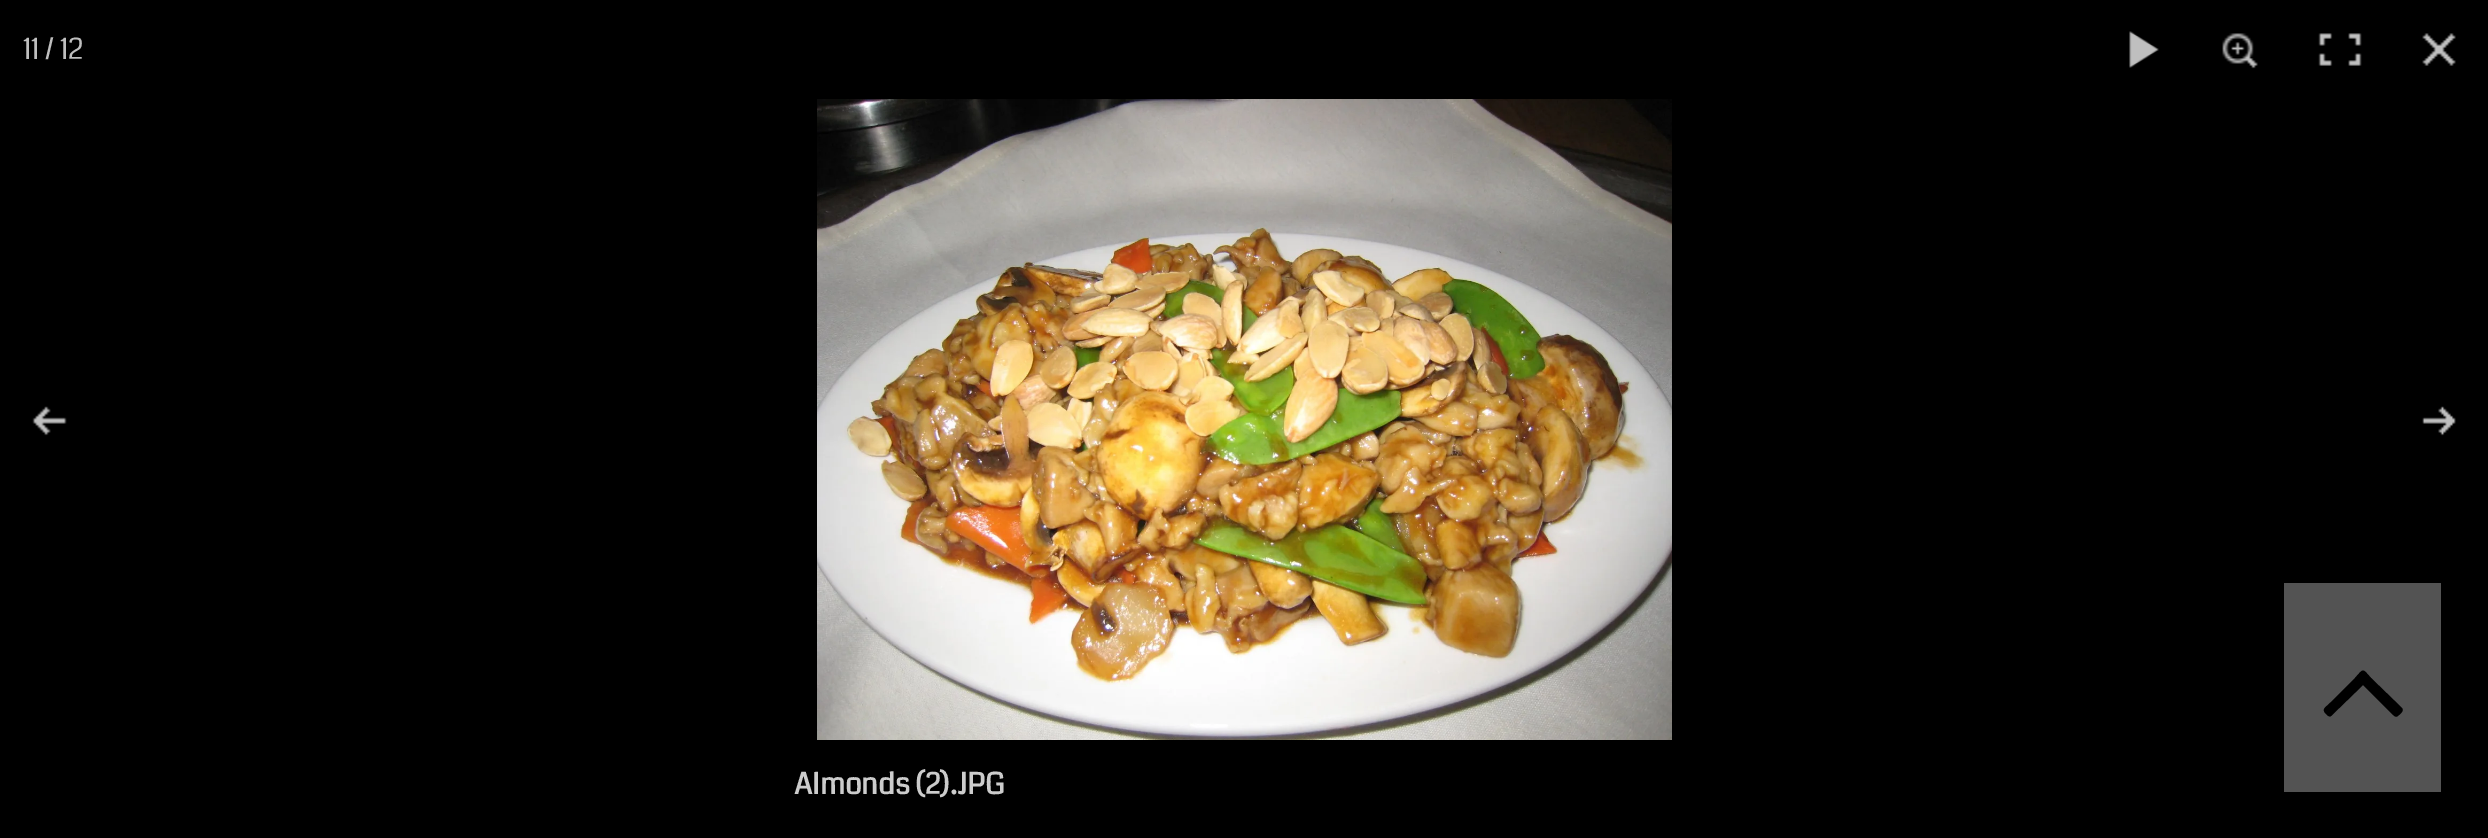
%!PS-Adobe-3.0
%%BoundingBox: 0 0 2488 838
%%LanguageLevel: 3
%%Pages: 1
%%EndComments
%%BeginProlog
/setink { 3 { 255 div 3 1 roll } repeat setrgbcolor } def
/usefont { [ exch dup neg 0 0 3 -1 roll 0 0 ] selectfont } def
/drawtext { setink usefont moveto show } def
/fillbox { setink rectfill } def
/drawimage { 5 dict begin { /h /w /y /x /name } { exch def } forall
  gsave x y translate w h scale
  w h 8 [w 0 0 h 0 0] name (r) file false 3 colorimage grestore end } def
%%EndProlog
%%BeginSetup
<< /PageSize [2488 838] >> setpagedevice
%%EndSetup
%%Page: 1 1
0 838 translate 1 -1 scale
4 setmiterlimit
0 0 2488 838 0 0 0 fillbox
(11 / 12) 23 59 /Coda-Regular 29.25 191 191 191 drawtext
(assets/img1.rgb) 2129 31 30 37 drawimage
(assets/img2.rgb) 2222 33 36 36 drawimage
(assets/img3.rgb) 2318 33 44 33 drawimage
(assets/img4.rgb) 2422 33 34 33 drawimage
(assets/img5.rgb) 32 406 35 30 drawimage
(assets/img6.rgb) 2422 406 34 30 drawimage
(Almonds \(2\).JPG) 794 794 /Coda-Bold 29.25 204 204 204 drawtext
(assets/img7.rgb) 817 99 855 641 drawimage
2284 583 157 209 83 83 83 fillbox
0 0 0 setink
2402 708 moveto 2404 711 2401 713 2399 715 curveto 2395 719 2394 715 2389 711 curveto 2363 685 lineto 2331 716 lineto 2330 717 2328 716 2327 715 curveto 2321 709 2324 709 2331 702 curveto 2355 678 lineto 2364 668 2362 668 2371 678 curveto closepath fill
showpage
%%EOF
